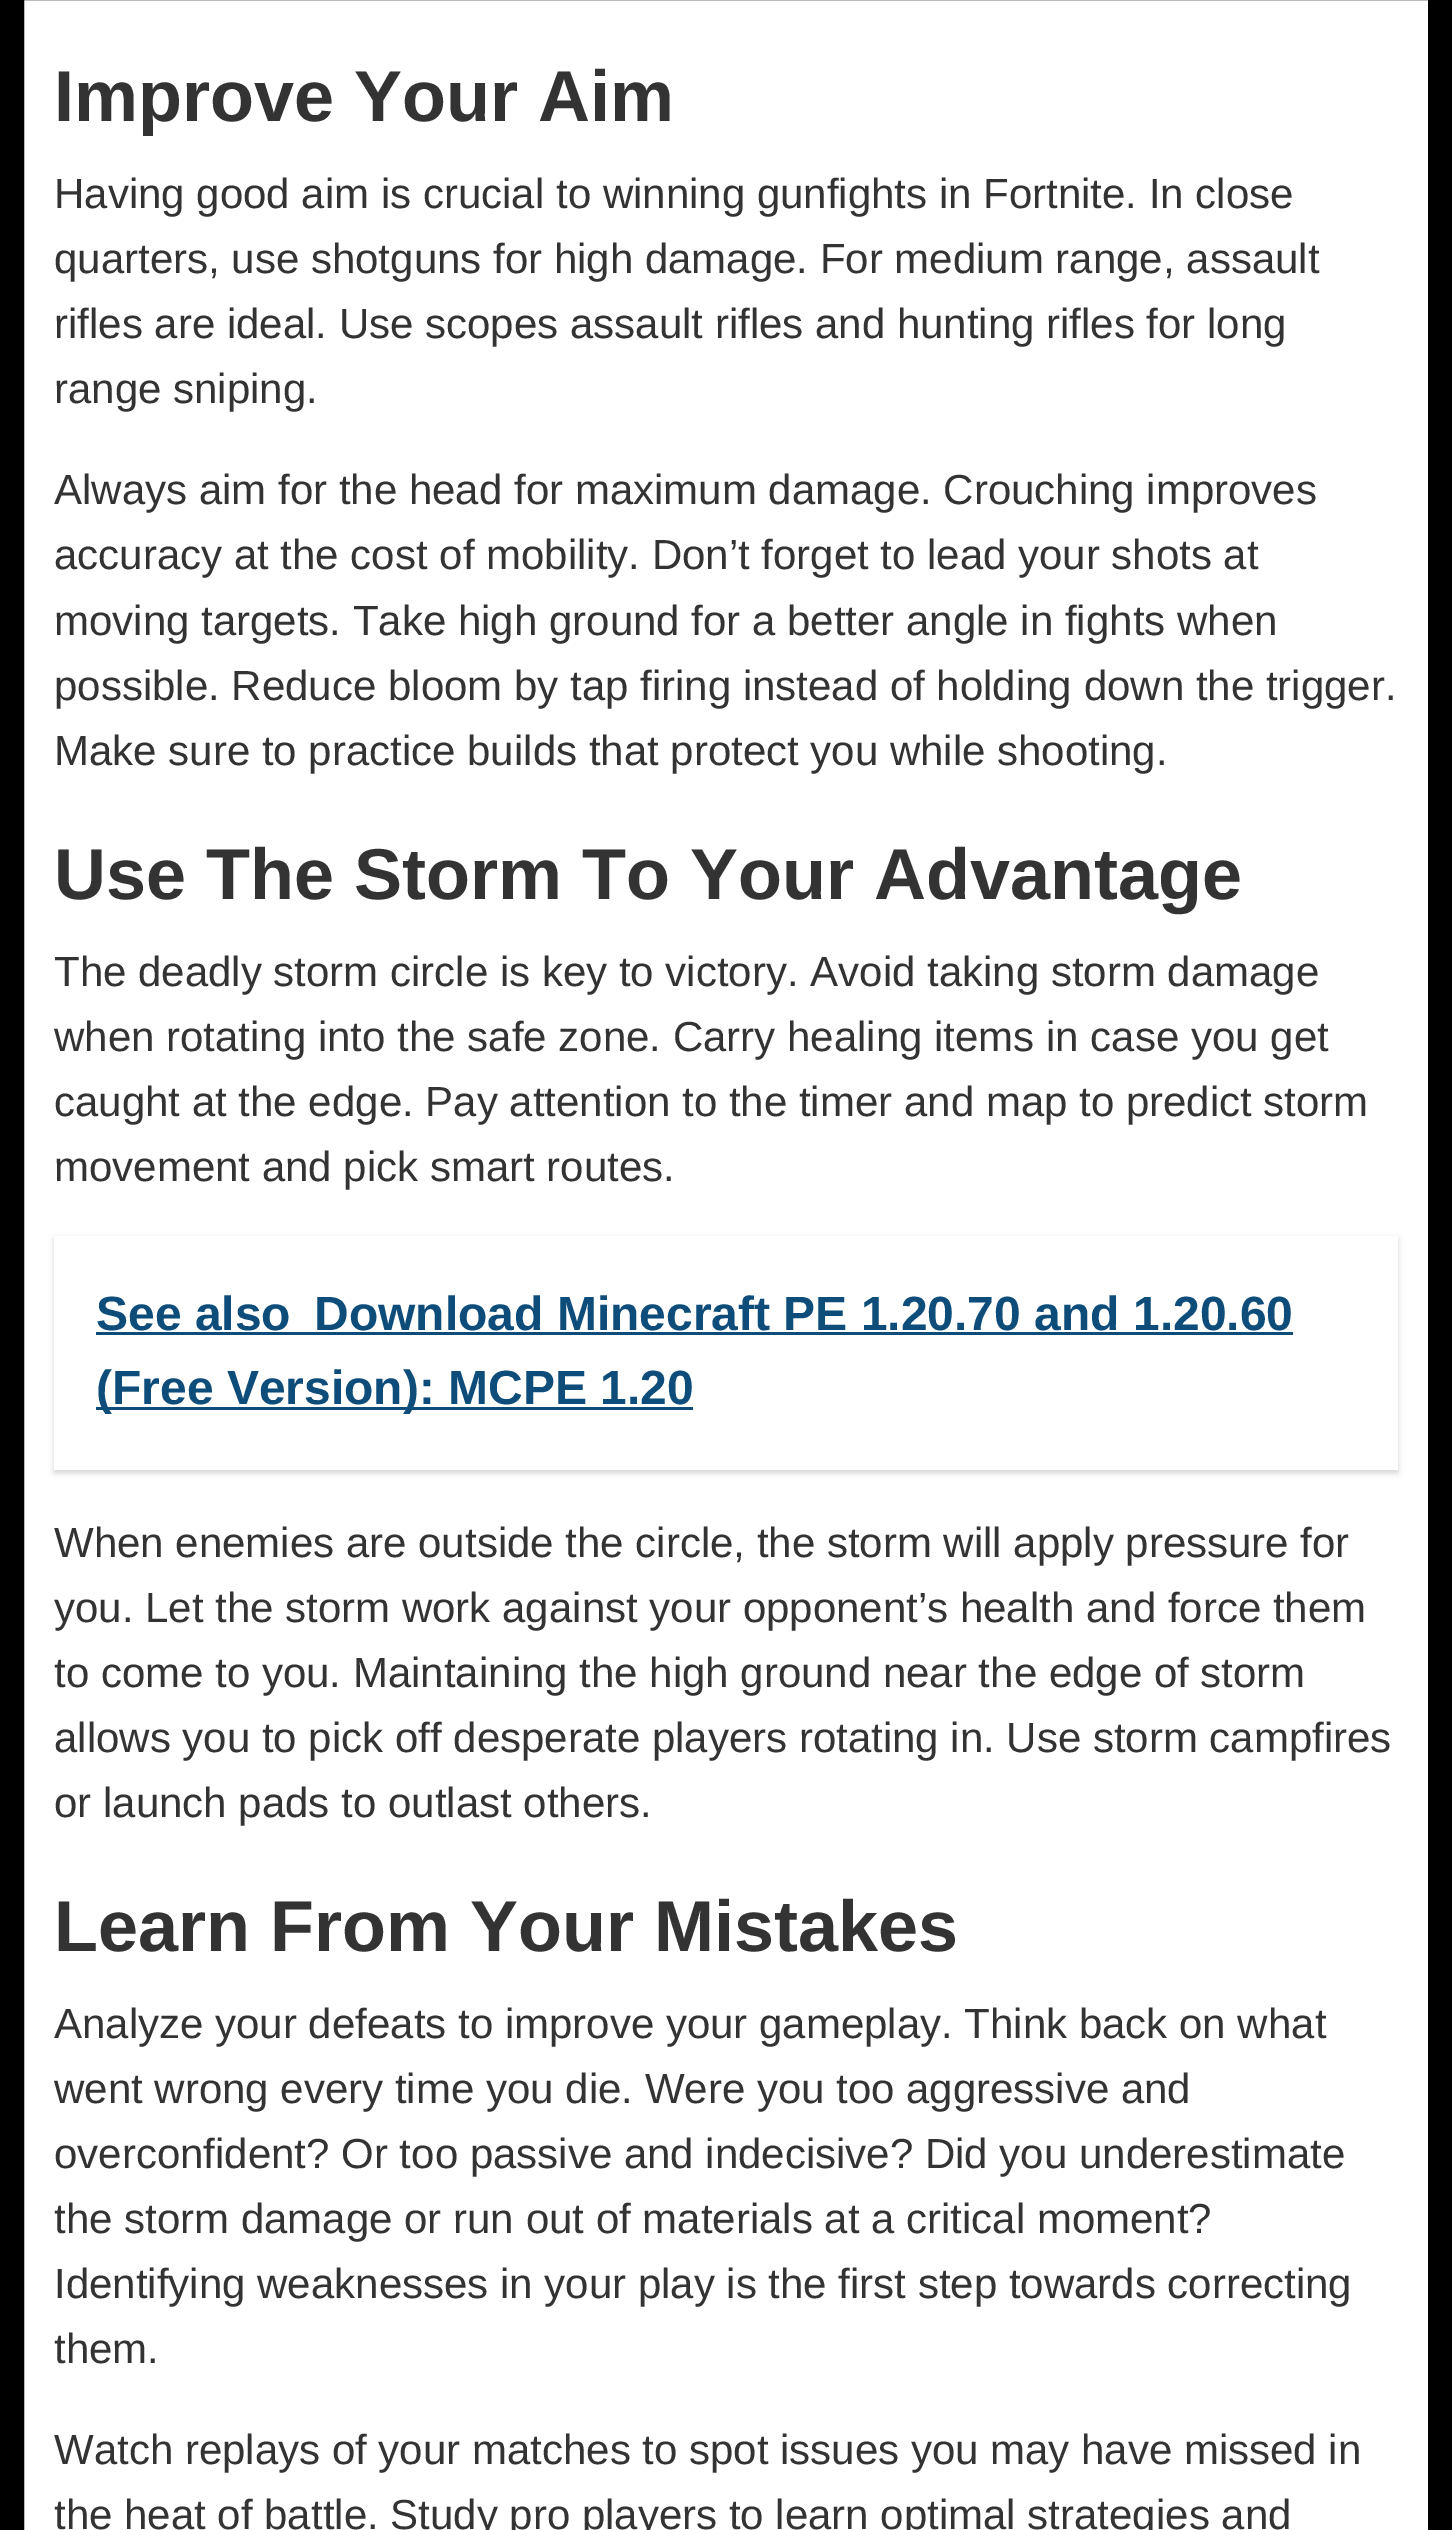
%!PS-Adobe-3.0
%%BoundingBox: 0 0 1452 2530
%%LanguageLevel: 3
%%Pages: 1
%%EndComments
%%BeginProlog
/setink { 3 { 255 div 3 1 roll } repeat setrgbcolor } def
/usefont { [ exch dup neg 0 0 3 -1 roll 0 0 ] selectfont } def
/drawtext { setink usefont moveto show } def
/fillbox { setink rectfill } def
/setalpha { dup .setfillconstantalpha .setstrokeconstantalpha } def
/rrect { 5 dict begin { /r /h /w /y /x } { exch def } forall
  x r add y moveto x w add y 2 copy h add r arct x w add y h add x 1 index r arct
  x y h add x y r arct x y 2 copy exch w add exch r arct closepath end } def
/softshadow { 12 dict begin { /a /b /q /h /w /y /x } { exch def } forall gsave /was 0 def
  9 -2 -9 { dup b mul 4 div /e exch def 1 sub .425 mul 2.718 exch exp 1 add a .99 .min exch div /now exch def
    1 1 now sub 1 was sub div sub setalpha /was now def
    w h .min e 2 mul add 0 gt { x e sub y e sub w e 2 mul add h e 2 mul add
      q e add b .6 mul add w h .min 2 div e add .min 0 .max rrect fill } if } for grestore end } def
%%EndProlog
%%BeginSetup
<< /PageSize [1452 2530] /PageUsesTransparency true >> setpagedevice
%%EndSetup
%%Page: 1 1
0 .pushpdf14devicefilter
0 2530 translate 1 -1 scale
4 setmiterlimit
0 0 1452 2530 255 255 255 fillbox
0 0 0 setink
24 setlinewidth
12 -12 1428 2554 rectstroke
(Improve Your Aim) 54 121 /LiberationSans-Bold 72 51 51 51 drawtext
(Having good aim is crucial to winning gunfights in Fortnite. In close) 54 208 /LiberationSans-Regular 42 51 51 51 drawtext
(quarters, use shotguns for high damage. For medium range, assault) 54 273 /LiberationSans-Regular 42 51 51 51 drawtext
(rifles are ideal. Use scopes assault rifles and hunting rifles for long) 54 338 /LiberationSans-Regular 42 51 51 51 drawtext
(range sniping.) 54 403 /LiberationSans-Regular 42 51 51 51 drawtext
(Always aim for the head for maximum damage. Crouching improves) 54 504 /LiberationSans-Regular 42 51 51 51 drawtext
(accuracy at the cost of mobility. Don’t forget to lead your shots at) 54 569 /LiberationSans-Regular 42 51 51 51 drawtext
(moving targets. Take high ground for a better angle in fights when) 54 635 /LiberationSans-Regular 42 51 51 51 drawtext
(possible. Reduce bloom by tap firing instead of holding down the trigger.) 54 700 /LiberationSans-Regular 42 51 51 51 drawtext
(Make sure to practice builds that protect you while shooting.) 54 765 /LiberationSans-Regular 42 51 51 51 drawtext
(Use The Storm To Your Advantage) 54 899 /LiberationSans-Bold 72 51 51 51 drawtext
(The deadly storm circle is key to victory. Avoid taking storm damage) 54 986 /LiberationSans-Regular 42 51 51 51 drawtext
(when rotating into the safe zone. Carry healing items in case you get) 54 1051 /LiberationSans-Regular 42 51 51 51 drawtext
(caught at the edge. Pay attention to the timer and map to predict storm) 54 1116 /LiberationSans-Regular 42 51 51 51 drawtext
(movement and pick smart routes.) 54 1181 /LiberationSans-Regular 42 51 51 51 drawtext
gsave
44 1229 moveto 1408 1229 lineto 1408 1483 lineto 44 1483 lineto closepath 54 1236 moveto 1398 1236 lineto 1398 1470 lineto 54 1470 lineto closepath eoclip newpath
0 0 0 setink
54 1239 1344 234 0 3 0.17 softshadow
grestore
(See also) 96 1330 /LiberationSans-Bold 48 14 77 122 drawtext
96 1332 1197 3 14 77 122 fillbox
(Download Minecraft PE 1.20.70 and 1.20.60) 314 1330 /LiberationSans-Bold 48 14 77 122 drawtext
96 1407 597 3 14 77 122 fillbox
(\(Free Version\): MCPE 1.20) 96 1404 /LiberationSans-Bold 48 14 77 122 drawtext
(When enemies are outside the circle, the storm will apply pressure for) 54 1557 /LiberationSans-Regular 42 51 51 51 drawtext
(you. Let the storm work against your opponent’s health and force them) 54 1622 /LiberationSans-Regular 42 51 51 51 drawtext
(to come to you. Maintaining the high ground near the edge of storm) 54 1687 /LiberationSans-Regular 42 51 51 51 drawtext
(allows you to pick off desperate players rotating in. Use storm campfires) 54 1752 /LiberationSans-Regular 42 51 51 51 drawtext
(or launch pads to outlast others.) 54 1817 /LiberationSans-Regular 42 51 51 51 drawtext
(Learn From Your Mistakes) 54 1951 /LiberationSans-Bold 72 51 51 51 drawtext
(Analyze your defeats to improve your gameplay. Think back on what) 54 2038 /LiberationSans-Regular 42 51 51 51 drawtext
(went wrong every time you die. Were you too aggressive and) 54 2103 /LiberationSans-Regular 42 51 51 51 drawtext
(overconfident? Or too passive and indecisive? Did you underestimate) 54 2168 /LiberationSans-Regular 42 51 51 51 drawtext
(the storm damage or run out of materials at a critical moment?) 54 2233 /LiberationSans-Regular 42 51 51 51 drawtext
(Identifying weaknesses in your play is the first step towards correcting) 54 2298 /LiberationSans-Regular 42 51 51 51 drawtext
(them.) 54 2363 /LiberationSans-Regular 42 51 51 51 drawtext
(Watch replays of your matches to spot issues you may have missed in) 54 2464 /LiberationSans-Regular 42 51 51 51 drawtext
(the heat of battle. Study pro players to learn optimal strategies and) 54 2529 /LiberationSans-Regular 42 51 51 51 drawtext
.poppdf14devicefilter showpage
%%EOF
